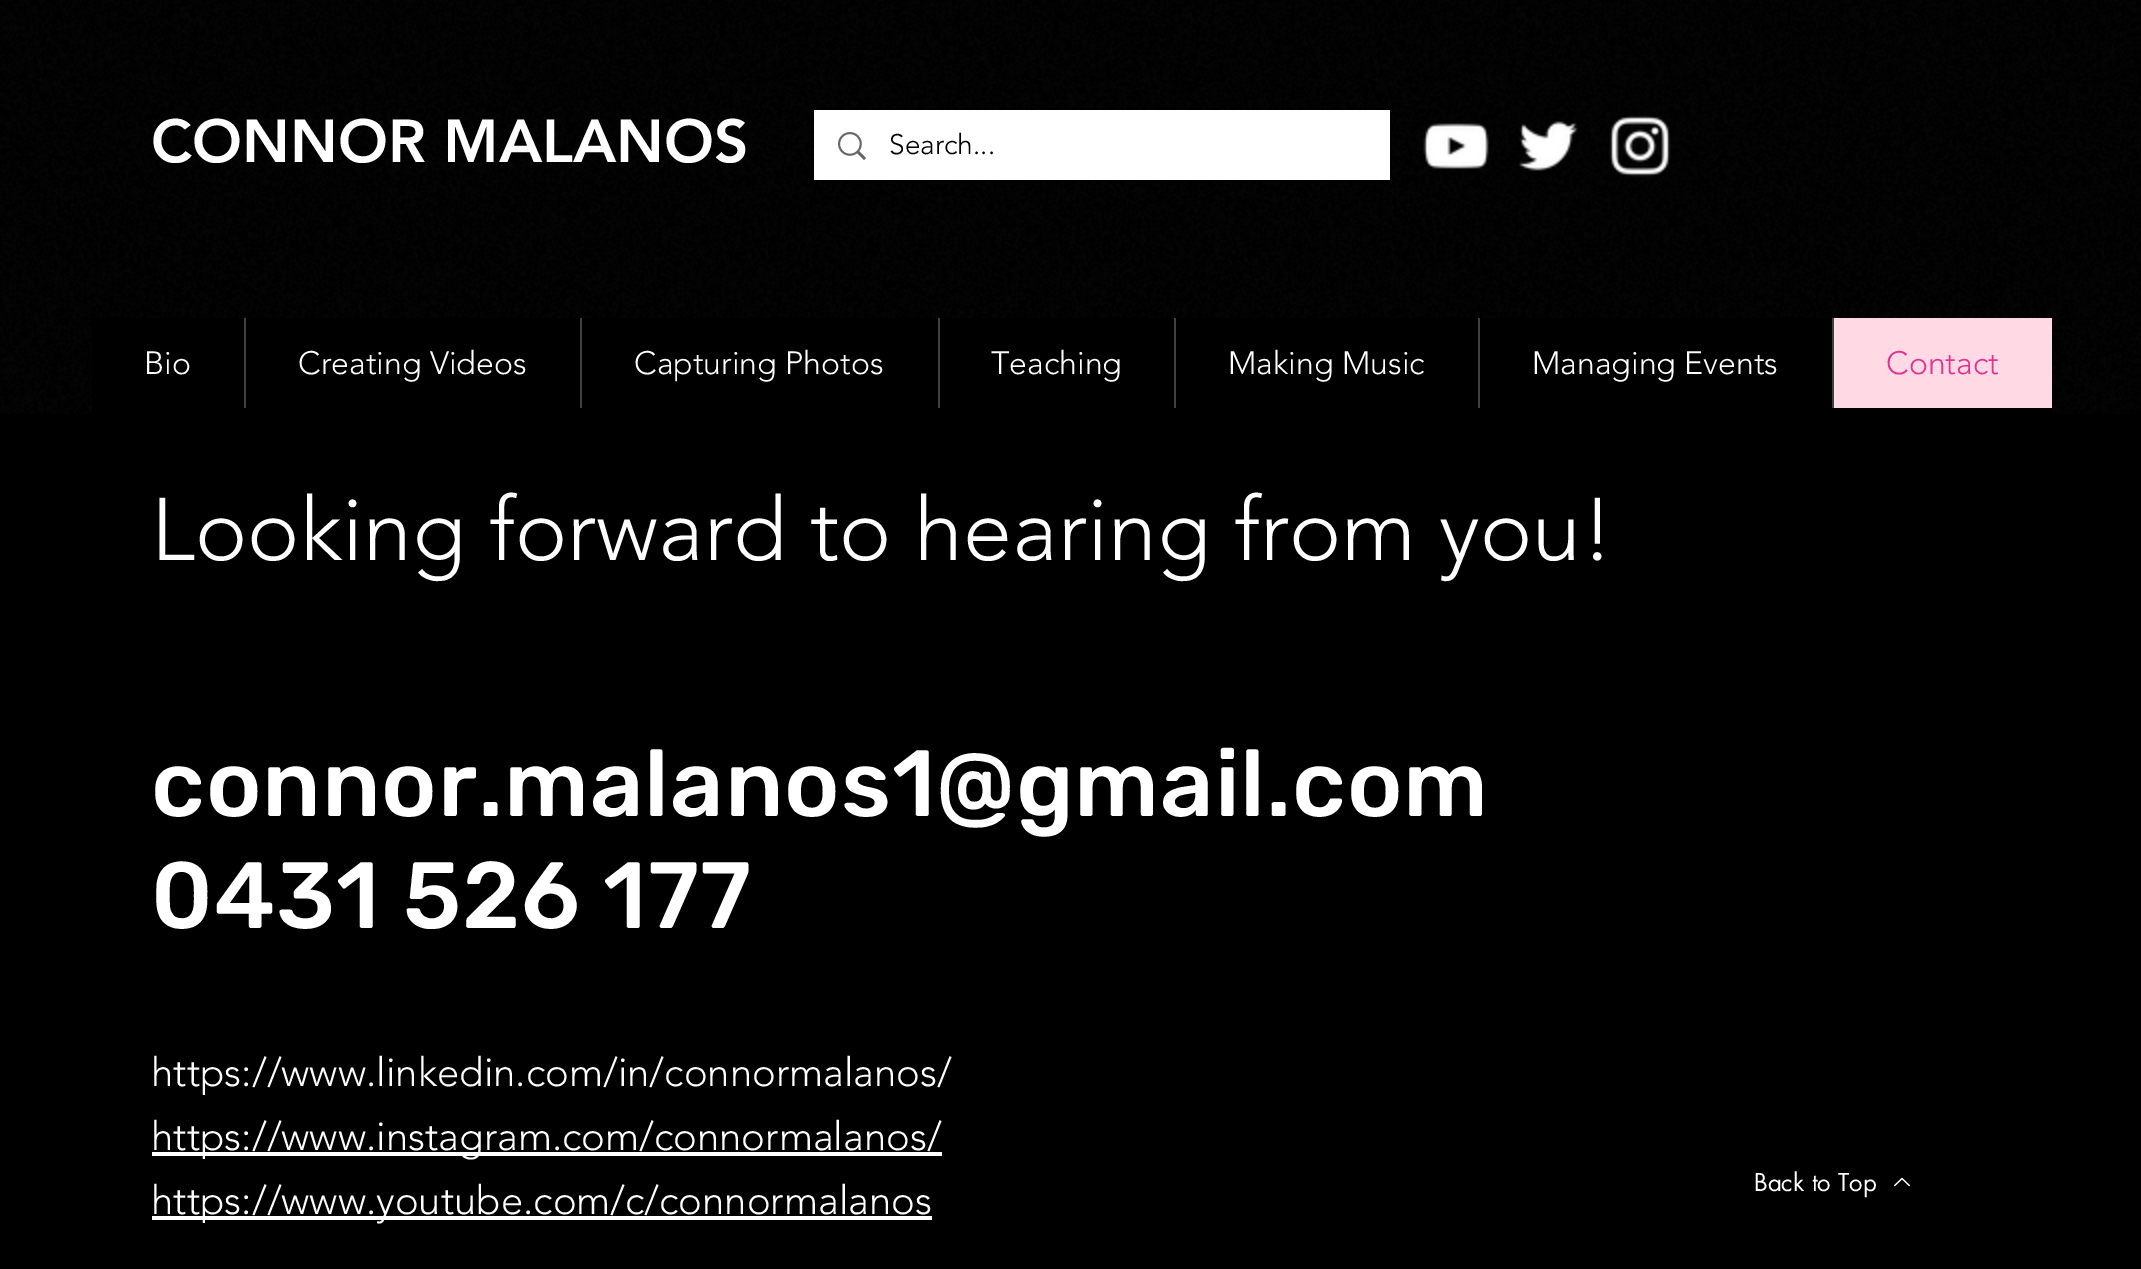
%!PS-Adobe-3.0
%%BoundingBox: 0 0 2141 1269
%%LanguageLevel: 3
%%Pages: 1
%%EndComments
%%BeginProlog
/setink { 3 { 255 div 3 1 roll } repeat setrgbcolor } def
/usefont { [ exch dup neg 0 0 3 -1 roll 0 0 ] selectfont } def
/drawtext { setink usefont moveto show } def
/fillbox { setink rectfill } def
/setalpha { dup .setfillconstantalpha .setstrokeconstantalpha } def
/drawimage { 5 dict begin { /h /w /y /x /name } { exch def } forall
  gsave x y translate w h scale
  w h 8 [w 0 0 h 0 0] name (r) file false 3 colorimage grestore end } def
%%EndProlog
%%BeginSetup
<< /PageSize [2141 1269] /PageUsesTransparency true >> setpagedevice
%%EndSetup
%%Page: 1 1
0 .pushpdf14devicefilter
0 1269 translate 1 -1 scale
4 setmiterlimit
0 0 2141 1269 0 0 0 fillbox
(assets/img1.rgb) 0 0 2141 414 drawimage
(CONNOR MALANOS) 151 162 /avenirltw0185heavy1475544-Black 60 255 255 255 drawtext
0.6 setalpha
0 0 0 setink
2 setlinewidth
813 109 578 72 rectstroke
1 setalpha
814 110 576 70 255 255 255 fillbox
(assets/img2.rgb) 838 132 28 28 drawimage
(Search...) 889 154 /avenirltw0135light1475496-Light 28 0 0 0 drawtext
(assets/img3.rgb) 1423 123 66 46 drawimage
(assets/img4.rgb) 1519 121 59 50 drawimage
(assets/img5.rgb) 1609 115 62 62 drawimage
92 408 1960 6 0 0 0 fillbox
92 318 1740 90 0 0 0 fillbox
(Bio) 144 374 /avenirltw0135light1475496-Light 32 255 255 255 drawtext
244 318 2 90 65 65 65 fillbox
(Creating Videos) 298 374 /avenirltw0135light1475496-Light 32 255 255 255 drawtext
580 318 2 90 65 65 65 fillbox
(Capturing Photos) 634 374 /avenirltw0135light1475496-Light 32 255 255 255 drawtext
938 318 2 90 65 65 65 fillbox
(Teaching) 991 374 /avenirltw0135light1475496-Light 32 255 255 255 drawtext
1174 318 2 90 65 65 65 fillbox
(Making Music) 1228 374 /avenirltw0135light1475496-Light 32 255 255 255 drawtext
1478 318 2 90 65 65 65 fillbox
(Managing Events) 1532 374 /avenirltw0135light1475496-Light 32 255 255 255 drawtext
1834 318 218 90 255 217 228 fillbox
1832 318 2 90 65 65 65 fillbox
(Contact) 1886 374 /avenirltw0135light1475496-Light 32 227 50 146 drawtext
(Looking forward to hearing from you!) 151 560 /avenirltw0135light1475496-Light 88 255 255 255 drawtext
/Rubik-Medium 94 usefont
151 816 moveto 0.9 0 (connor.malanos1@gmail.com) ashow
151 928 moveto 0.9 0 (0431 526 177) ashow
(https://www.linkedin.com/in/connormalanos/) 151 1086 /avenirltw0135light1475496-Light 40 255 255 255 drawtext
152 1152 790 4 255 255 255 fillbox
(https://www.instagram.com/connormalanos/) 151 1150 /avenirltw0135light1475496-Light 40 255 255 255 drawtext
152 1216 780 4 255 255 255 fillbox
(https://www.youtube.com/c/connormalanos) 151 1214 /avenirltw0135light1475496-Light 40 255 255 255 drawtext
(Back to Top) 1754 1191 /futura-Regular 24 255 255 255 drawtext
(assets/img6.rgb) 1894 1177 16 10 drawimage
.poppdf14devicefilter showpage
%%EOF
